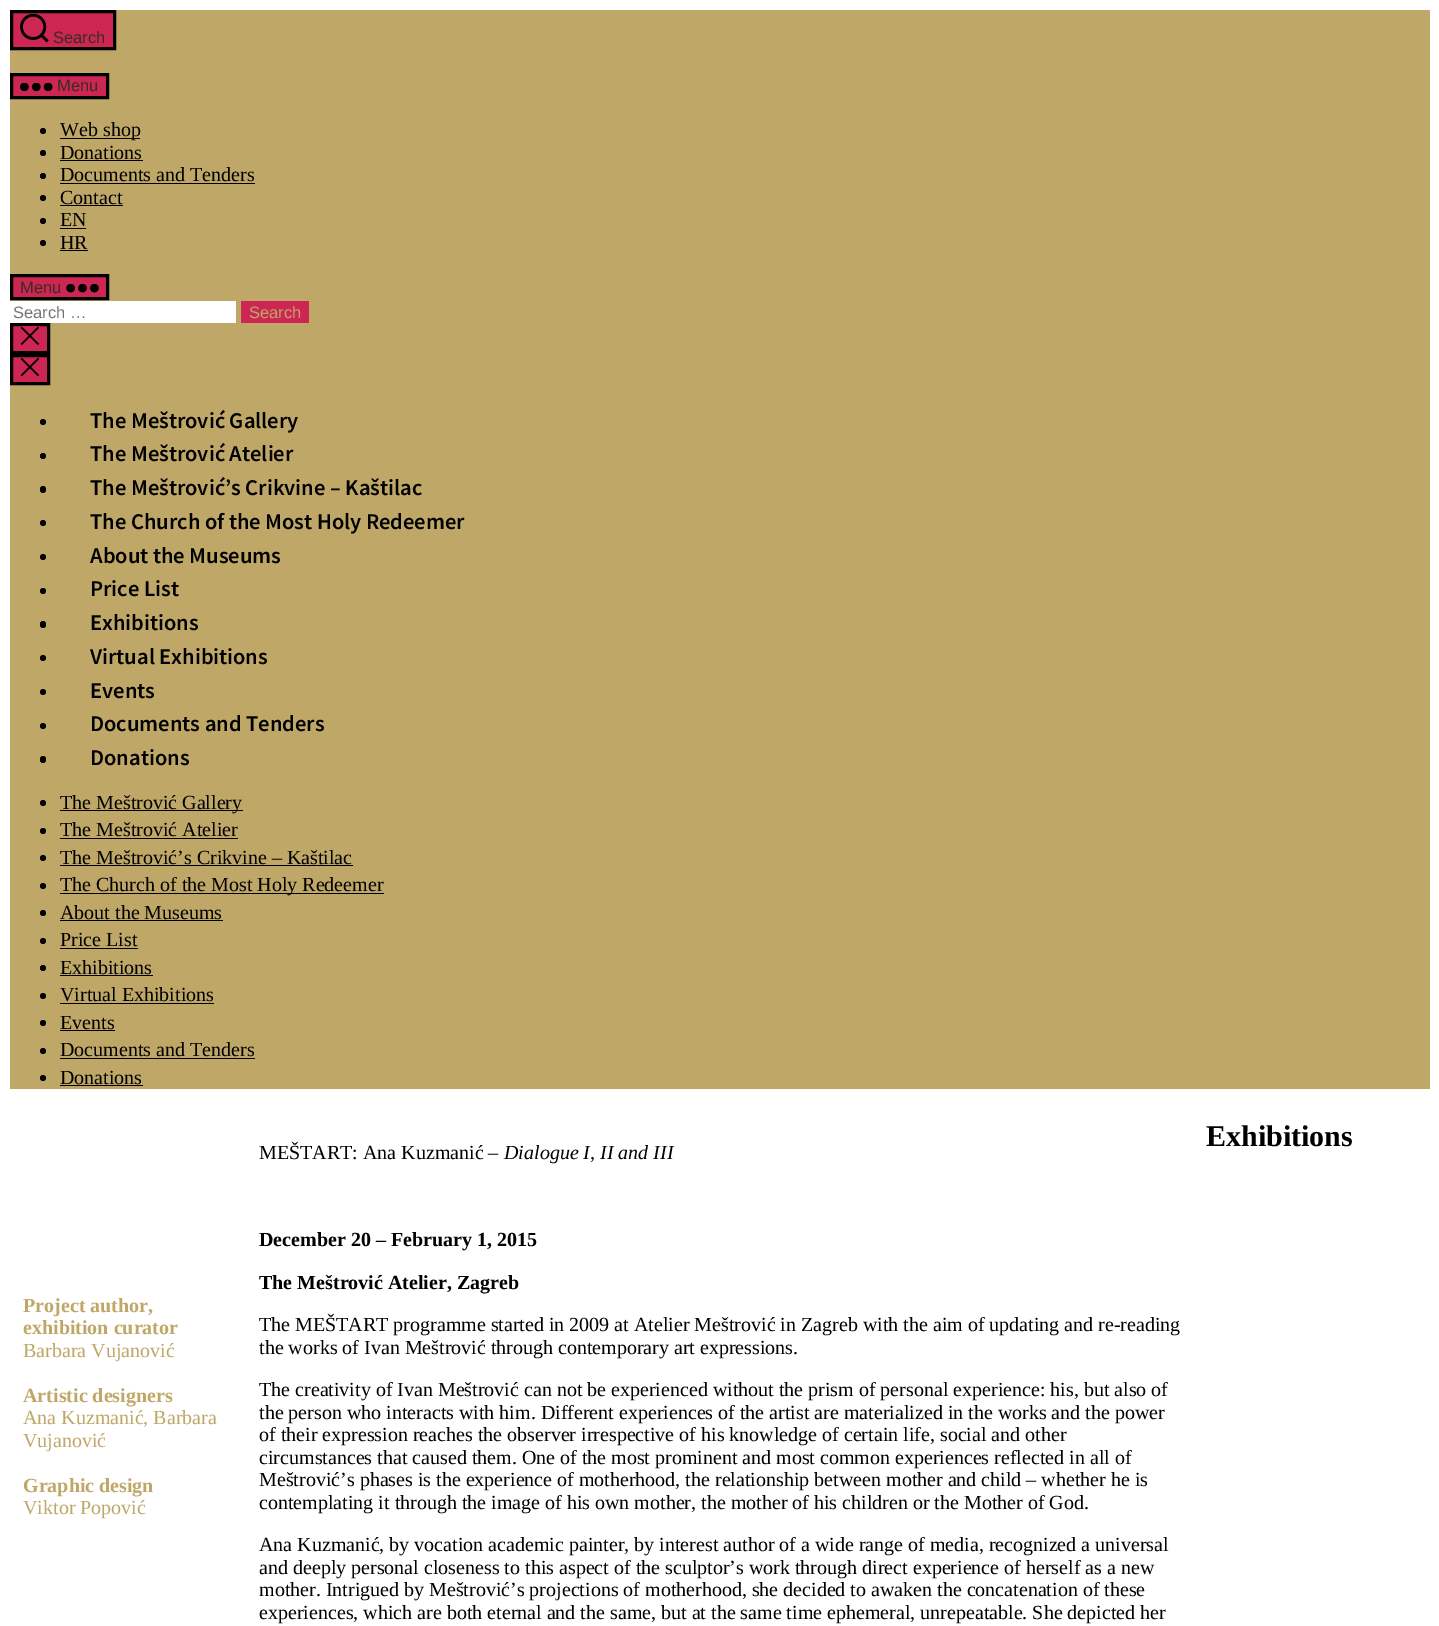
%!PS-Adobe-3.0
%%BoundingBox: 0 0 1439 1626
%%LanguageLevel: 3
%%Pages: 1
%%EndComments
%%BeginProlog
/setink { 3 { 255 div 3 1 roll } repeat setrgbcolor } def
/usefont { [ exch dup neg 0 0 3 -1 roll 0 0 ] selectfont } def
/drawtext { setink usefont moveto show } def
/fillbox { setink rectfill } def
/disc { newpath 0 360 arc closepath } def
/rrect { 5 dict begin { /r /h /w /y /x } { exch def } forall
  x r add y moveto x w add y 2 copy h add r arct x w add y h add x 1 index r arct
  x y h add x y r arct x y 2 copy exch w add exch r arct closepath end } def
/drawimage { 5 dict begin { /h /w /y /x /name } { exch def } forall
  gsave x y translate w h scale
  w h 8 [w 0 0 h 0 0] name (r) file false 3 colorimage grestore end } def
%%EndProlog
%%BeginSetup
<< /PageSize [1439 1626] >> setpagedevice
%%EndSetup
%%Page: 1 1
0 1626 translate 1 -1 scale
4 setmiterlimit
0 0 1439 1626 255 255 255 fillbox
10 10 1420 1079 191 167 103 fillbox
205 38 83 setink
11.5 11.5 moveto 114.5 11.5 lineto 114.5 48.5 lineto 11.5 48.5 lineto closepath gsave fill grestore
0 0 0 setink
3 setlinewidth
stroke
(assets/img1.rgb) 20 14 29 29 drawimage
(Search) 53 43 /LiberationSans-Regular 16.5 52 48 34 drawtext
205 38 83 setink
11.5 74.5 moveto 107.5 74.5 lineto 107.5 97.5 lineto 11.5 97.5 lineto closepath gsave fill grestore
0 0 0 setink
stroke
(assets/img2.rgb) 20 83 33 8 drawimage
(Menu) 57 91 /LiberationSans-Regular 16.5 52 48 34 drawtext
0 0 0 setink
43 131 3 disc fill
60 138 80 1 0 0 0 fillbox
(Web shop) 60 136 /LiberationSerif-Regular 20 0 0 0 drawtext
43 153 3 disc fill
(Donations) 60 159 /LiberationSerif-Regular 20 0 0 0 drawtext
60 160 83 1 0 0 0 fillbox
43 176 3 disc fill
(Documents and Tenders) 60 181 /LiberationSerif-Regular 20 0 0 0 drawtext
60 183 195 1 0 0 0 fillbox
43 198 3 disc fill
(Contact) 60 204 /LiberationSerif-Regular 20 0 0 0 drawtext
60 205 63 1 0 0 0 fillbox
43 221 3 disc fill
(EN) 60 226 /LiberationSerif-Regular 20 0 0 0 drawtext
60 228 26 1 0 0 0 fillbox
43 243 3 disc fill
(HR) 60 249 /LiberationSerif-Regular 20 0 0 0 drawtext
60 250 28 1 0 0 0 fillbox
205 38 83 setink
11.5 275.5 moveto 107.5 275.5 lineto 107.5 298.5 lineto 11.5 298.5 lineto closepath gsave fill grestore
0 0 0 setink
stroke
(Menu) 20 293 /LiberationSans-Regular 16.5 52 48 34 drawtext
(assets/img3.rgb) 66 284 33 9 drawimage
10 301 226 22 255 255 255 fillbox
(Search …) 13 318 /LiberationSans-Regular 16.5 117 117 117 drawtext
241 301 68 22 205 38 83 fillbox
(Search) 249 318 /LiberationSans-Regular 16.5 191 167 103 drawtext
205 38 83 setink
11.5 324.5 moveto 48.5 324.5 lineto 48.5 352.5 lineto 11.5 352.5 lineto closepath gsave fill grestore
0 0 0 setink
stroke
(assets/img4.rgb) 20 326 20 20 drawimage
205 38 83 setink
11.5 355.5 moveto 48.5 355.5 lineto 48.5 383.5 lineto 11.5 383.5 lineto closepath gsave fill grestore
0 0 0 setink
stroke
(assets/img5.rgb) 20 358 20 19 drawimage
43 422 3 disc fill
(The Meštrović Gallery) 90 428 /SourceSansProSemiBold-SemiBold 22.5 0 0 0 drawtext
43 456 3 disc fill
(The Meštrović Atelier) 90 461 /SourceSansProSemiBold-SemiBold 22.5 0 0 0 drawtext
40 486 6 7 3 rrect fill
(The Meštrović’s Crikvine – Kaštilac) 90 495 /SourceSansProSemiBold-SemiBold 22.5 0 0 0 drawtext
43 523 3 disc fill
(The Church of the Most Holy Redeemer) 90 529 /SourceSansProSemiBold-SemiBold 22.5 0 0 0 drawtext
43 557 3 disc fill
(About the Museums) 90 563 /SourceSansProSemiBold-SemiBold 22.5 0 0 0 drawtext
43 591 3 disc fill
(Price List) 90 596 /SourceSansProSemiBold-SemiBold 22.5 0 0 0 drawtext
40 621 6 7 3 rrect fill
(Exhibitions) 90 630 /SourceSansProSemiBold-SemiBold 22.5 0 0 0 drawtext
43 658 3 disc fill
(Virtual Exhibitions) 90 664 /SourceSansProSemiBold-SemiBold 22.5 0 0 0 drawtext
43 692 3 disc fill
(Events) 90 698 /SourceSansProSemiBold-SemiBold 22.5 0 0 0 drawtext
43 726 3 disc fill
(Documents and Tenders) 90 731 /SourceSansProSemiBold-SemiBold 22.5 0 0 0 drawtext
40 756 6 7 3 rrect fill
(Donations) 90 765 /SourceSansProSemiBold-SemiBold 22.5 0 0 0 drawtext
43 803 3 disc fill
60 810 183 1 0 0 0 fillbox
(The Meštrović Gallery) 60 809 /LiberationSerif-Regular 20 0 0 0 drawtext
43 831 3 disc fill
(The Meštrović Atelier) 60 836 /LiberationSerif-Regular 20 0 0 0 drawtext
60 838 178 1 0 0 0 fillbox
43 858 3 disc fill
(The Meštrović’s Crikvine – Kaštilac) 60 864 /LiberationSerif-Regular 20 0 0 0 drawtext
60 865 293 1 0 0 0 fillbox
43 886 3 disc fill
60 893 324 1 0 0 0 fillbox
(The Church of the Most Holy Redeemer) 60 891 /LiberationSerif-Regular 20 0 0 0 drawtext
43 913 3 disc fill
(About the Museums) 60 919 /LiberationSerif-Regular 20 0 0 0 drawtext
60 920 163 1 0 0 0 fillbox
43 941 3 disc fill
(Price List) 60 946 /LiberationSerif-Regular 20 0 0 0 drawtext
60 948 78 1 0 0 0 fillbox
43 968 3 disc fill
(Exhibitions) 60 974 /LiberationSerif-Regular 20 0 0 0 drawtext
60 975 93 1 0 0 0 fillbox
43 996 3 disc fill
(Virtual Exhibitions) 60 1001 /LiberationSerif-Regular 20 0 0 0 drawtext
60 1003 154 1 0 0 0 fillbox
43 1023 3 disc fill
(Events) 60 1029 /LiberationSerif-Regular 20 0 0 0 drawtext
60 1030 55 1 0 0 0 fillbox
43 1051 3 disc fill
(Documents and Tenders) 60 1056 /LiberationSerif-Regular 20 0 0 0 drawtext
60 1058 195 1 0 0 0 fillbox
43 1078 3 disc fill
(Donations) 60 1084 /LiberationSerif-Regular 20 0 0 0 drawtext
60 1085 83 1 0 0 0 fillbox
(Exhibitions) 1206 1146 /LiberationSerif-Bold 30 0 0 0 drawtext
(Project author,) 23 1312 /LiberationSerif-Bold 20 191 167 103 drawtext
(exhibition curator) 23 1334 /LiberationSerif-Bold 20 191 167 103 drawtext
(Barbara Vujanović) 23 1357 /LiberationSerif-Regular 20 191 167 103 drawtext
(Artistic designers) 23 1402 /LiberationSerif-Bold 20 191 167 103 drawtext
(Ana Kuzmanić, Barbara) 23 1424 /LiberationSerif-Regular 20 191 167 103 drawtext
(Vujanović) 23 1447 /LiberationSerif-Regular 20 191 167 103 drawtext
(Graphic design) 23 1492 /LiberationSerif-Bold 20 191 167 103 drawtext
(Viktor Popović) 23 1514 /LiberationSerif-Regular 20 191 167 103 drawtext
(MEŠTART: Ana Kuzmanić –) 259 1159 /LiberationSerif-Regular 20 0 0 0 drawtext
(Dialogue I, II and III) 504 1159 /LiberationSerif-Italic 20 0 0 0 drawtext
(December 20 – February 1, 2015) 259 1246 /LiberationSerif-Bold 20 0 0 0 drawtext
(The Meštrović Atelier, Zagreb) 259 1289 /LiberationSerif-Bold 20 0 0 0 drawtext
(The MEŠTART programme started in 2009 at Atelier Meštrović in Zagreb with the aim of updating and re-reading) 259 1331 /LiberationSerif-Regular 20 0 0 0 drawtext
(the works of Ivan Meštrović through contemporary art expressions.) 259 1354 /LiberationSerif-Regular 20 0 0 0 drawtext
(The creativity of Ivan Meštrović can not be experienced without the prism of personal experience: his, but also of) 259 1396 /LiberationSerif-Regular 20 0 0 0 drawtext
(the person who interacts with him. Different experiences of the artist are materialized in the works and the power) 259 1419 /LiberationSerif-Regular 20 0 0 0 drawtext
(of their expression reaches the observer irrespective of his knowledge of certain life, social and other) 259 1441 /LiberationSerif-Regular 20 0 0 0 drawtext
(circumstances that caused them. One of the most prominent and most common experiences reflected in all of) 259 1464 /LiberationSerif-Regular 20 0 0 0 drawtext
(Meštrović’s phases is the experience of motherhood, the relationship between mother and child – whether he is) 259 1486 /LiberationSerif-Regular 20 0 0 0 drawtext
(contemplating it through the image of his own mother, the mother of his children or the Mother of God.) 259 1509 /LiberationSerif-Regular 20 0 0 0 drawtext
(Ana Kuzmanić, by vocation academic painter, by interest author of a wide range of media, recognized a universal) 259 1551 /LiberationSerif-Regular 20 0 0 0 drawtext
(and deeply personal closeness to this aspect of the sculptor’s work through direct experience of herself as a new) 259 1574 /LiberationSerif-Regular 20 0 0 0 drawtext
(mother. Intrigued by Meštrović’s projections of motherhood, she decided to awaken the concatenation of these) 259 1596 /LiberationSerif-Regular 20 0 0 0 drawtext
(experiences, which are both eternal and the same, but at the same time ephemeral, unrepeatable. She depicted her) 259 1619 /LiberationSerif-Regular 20 0 0 0 drawtext
showpage
%%EOF
